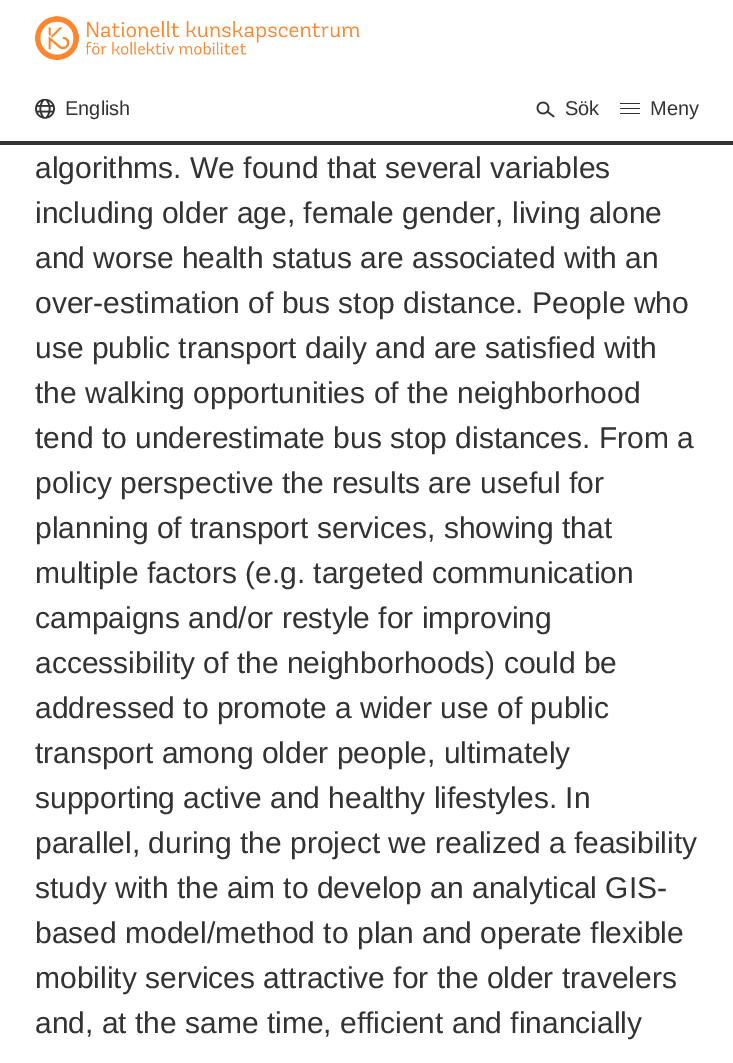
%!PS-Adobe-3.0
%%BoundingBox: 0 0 733 1063
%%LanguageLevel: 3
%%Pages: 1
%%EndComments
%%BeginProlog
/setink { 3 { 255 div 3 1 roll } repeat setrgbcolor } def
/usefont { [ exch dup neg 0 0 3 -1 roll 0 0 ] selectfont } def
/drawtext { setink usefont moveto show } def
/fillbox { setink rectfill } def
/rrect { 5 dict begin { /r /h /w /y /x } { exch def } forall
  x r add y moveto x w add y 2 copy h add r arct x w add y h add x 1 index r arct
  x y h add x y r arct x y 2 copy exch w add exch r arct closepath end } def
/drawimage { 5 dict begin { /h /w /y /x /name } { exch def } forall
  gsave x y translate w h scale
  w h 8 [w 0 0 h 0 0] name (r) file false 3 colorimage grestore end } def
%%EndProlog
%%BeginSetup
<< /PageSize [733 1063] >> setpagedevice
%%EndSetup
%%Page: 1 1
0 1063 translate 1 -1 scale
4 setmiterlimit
0 0 733 1063 255 255 255 fillbox
0 141 733 4 51 51 51 fillbox
(assets/img1.rgb) 35 16 325 44 drawimage
(assets/img2.rgb) 35 99 20 20 drawimage
(English) 65 115 /LiberationSans-Regular 20 51 51 51 drawtext
(assets/img3.rgb) 536 101 19 17 drawimage
(Sök) 565 115 /LiberationSans-Regular 20 51 51 51 drawtext
620 103 20 1 0.5 rrect fill
620 108 20 1 0.5 rrect fill
620 113 20 1 0.5 rrect fill
(Meny) 650 115 /LiberationSans-Regular 20 51 51 51 drawtext
(algorithms. We found that several variables) 35 178 /LiberationSans-Regular 30 51 51 51 drawtext
(including older age, female gender, living alone) 35 223 /LiberationSans-Regular 30 51 51 51 drawtext
(and worse health status are associated with an) 35 268 /LiberationSans-Regular 30 51 51 51 drawtext
(over-estimation of bus stop distance. People who) 35 313 /LiberationSans-Regular 30 51 51 51 drawtext
(use public transport daily and are satisfied with) 35 358 /LiberationSans-Regular 30 51 51 51 drawtext
(the walking opportunities of the neighborhood) 35 403 /LiberationSans-Regular 30 51 51 51 drawtext
(tend to underestimate bus stop distances. From a) 35 448 /LiberationSans-Regular 30 51 51 51 drawtext
(policy perspective the results are useful for) 35 493 /LiberationSans-Regular 30 51 51 51 drawtext
(planning of transport services, showing that) 35 538 /LiberationSans-Regular 30 51 51 51 drawtext
(multiple factors \(e.g. targeted communication) 35 583 /LiberationSans-Regular 30 51 51 51 drawtext
(campaigns and/or restyle for improving) 35 628 /LiberationSans-Regular 30 51 51 51 drawtext
(accessibility of the neighborhoods\) could be) 35 673 /LiberationSans-Regular 30 51 51 51 drawtext
(addressed to promote a wider use of public) 35 718 /LiberationSans-Regular 30 51 51 51 drawtext
(transport among older people, ultimately) 35 763 /LiberationSans-Regular 30 51 51 51 drawtext
(supporting active and healthy lifestyles. In) 35 808 /LiberationSans-Regular 30 51 51 51 drawtext
(parallel, during the project we realized a feasibility) 35 853 /LiberationSans-Regular 30 51 51 51 drawtext
(study with the aim to develop an analytical GIS-) 35 898 /LiberationSans-Regular 30 51 51 51 drawtext
(based model/method to plan and operate flexible) 35 943 /LiberationSans-Regular 30 51 51 51 drawtext
(mobility services attractive for the older travelers) 35 988 /LiberationSans-Regular 30 51 51 51 drawtext
(and, at the same time, efficient and financially) 35 1033 /LiberationSans-Regular 30 51 51 51 drawtext
showpage
%%EOF
